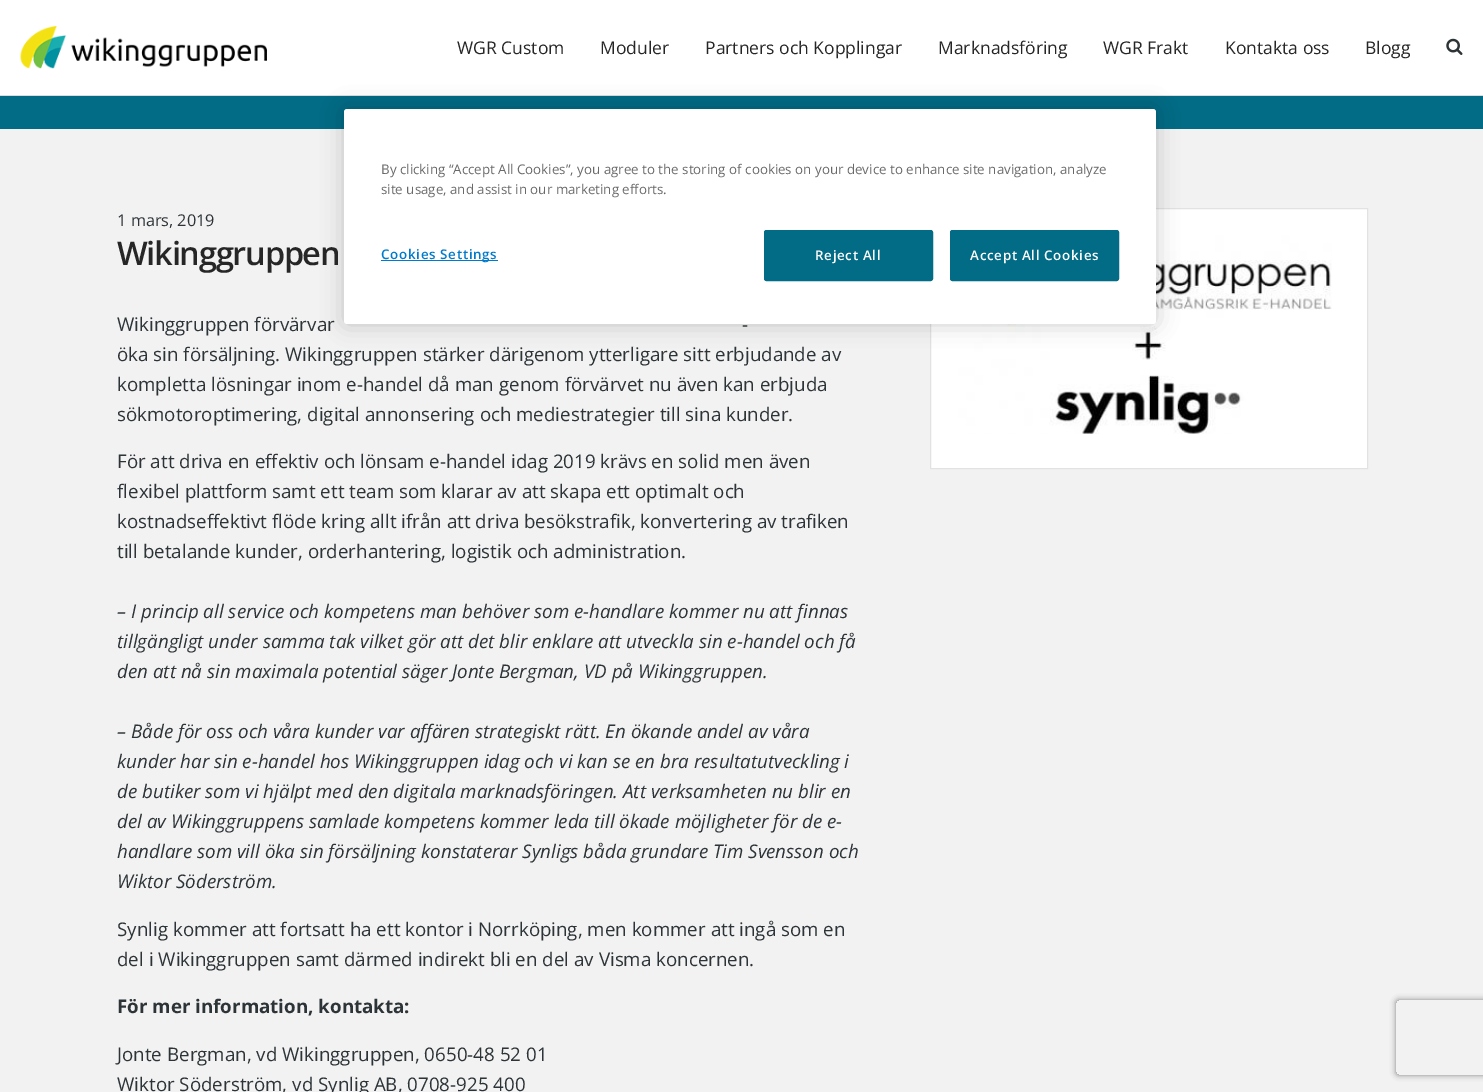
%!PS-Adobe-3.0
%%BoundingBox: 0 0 1483 1092
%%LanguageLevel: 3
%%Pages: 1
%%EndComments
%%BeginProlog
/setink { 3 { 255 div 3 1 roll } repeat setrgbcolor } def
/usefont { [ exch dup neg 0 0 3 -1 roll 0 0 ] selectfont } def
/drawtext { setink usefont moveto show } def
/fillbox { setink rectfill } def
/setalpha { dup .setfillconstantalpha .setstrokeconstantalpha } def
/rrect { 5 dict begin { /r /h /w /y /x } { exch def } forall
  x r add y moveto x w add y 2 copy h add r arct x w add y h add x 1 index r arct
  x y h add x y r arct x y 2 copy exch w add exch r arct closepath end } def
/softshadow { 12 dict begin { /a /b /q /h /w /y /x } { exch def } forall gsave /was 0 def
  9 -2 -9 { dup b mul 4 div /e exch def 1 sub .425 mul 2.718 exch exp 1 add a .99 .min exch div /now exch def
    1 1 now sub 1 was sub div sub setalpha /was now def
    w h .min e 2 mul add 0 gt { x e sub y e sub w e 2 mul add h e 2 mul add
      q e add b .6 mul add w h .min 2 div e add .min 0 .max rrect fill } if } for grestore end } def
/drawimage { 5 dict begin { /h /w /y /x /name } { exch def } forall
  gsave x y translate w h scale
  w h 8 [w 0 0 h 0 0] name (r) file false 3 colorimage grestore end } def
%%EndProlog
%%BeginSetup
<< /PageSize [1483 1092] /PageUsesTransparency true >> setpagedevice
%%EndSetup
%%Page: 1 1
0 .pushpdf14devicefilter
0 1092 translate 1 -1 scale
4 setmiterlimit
0 0 1483 1092 242 242 242 fillbox
0 0 1483 95 255 255 255 fillbox
0 95 1483 1 221 221 221 fillbox
(assets/img1.rgb) 20 26 247 43 drawimage
(WGR Custom) 457 54 /OpenSans-Regular 17.5 38 38 38 drawtext
(Moduler) 600 54 /OpenSans-Regular 17.5 38 38 38 drawtext
(Partners och Kopplingar) 705 54 /OpenSans-Regular 17.5 38 38 38 drawtext
(Marknadsföring) 938 54 /OpenSans-Regular 17.5 38 38 38 drawtext
(WGR Frakt) 1103 54 /OpenSans-Regular 17.5 38 38 38 drawtext
(Kontakta oss) 1225 54 /OpenSans-Regular 17.5 38 38 38 drawtext
(Blogg) 1365 54 /OpenSans-Regular 17.5 38 38 38 drawtext
(assets/img2.rgb) 1446 38 17 17 drawimage
0 96 1483 33 2 107 133 fillbox
255 255 255 setink
930.5 208.5 moveto 1367.5 208.5 lineto 1367.5 468.5 lineto 930.5 468.5 lineto closepath gsave fill grestore
226 226 226 setink
stroke
(assets/img3.rgb) 958 235 374 199 drawimage
0 0 0 setink
344 109 812 215 3 11 0.2 softshadow
255 255 255 setink
344 109 812 215 3 rrect fill
(By clicking “Accept All Cookies”, you agree to the storing of cookies on your device to enhance site navigation, analyze) 381 174 /OpenSans-Regular 13.35 105 105 105 drawtext
(site usage, and assist in our marketing efforts.) 381 194 /OpenSans-Regular 13.35 105 105 105 drawtext
381 260 117 1 0 122 202 fillbox
/OpenSans-SemiBold 13.35 usefont
381 259 moveto 0.7 0 (Cookies Settings) ashow
2 107 133 setink
764.5 230.5 168 50 2 rrect gsave fill grestore
stroke
255 255 255 setink
815 260 moveto 0.7 0 (Reject All) ashow
2 107 133 setink
950.5 230.5 168 50 2 rrect gsave fill grestore
stroke
255 255 255 setink
970 260 moveto 0.7 0 (Accept All Cookies) ashow
(1 mars, 2019) 117 226 /OpenSans-Regular 16.25 45 52 56 drawtext
/OpenSans-SemiBold 32.5 usefont
38 38 38 setink
117 265 moveto -1.25 0 (Wikinggruppen) ashow
(Wikinggruppen förvärvar) 117 331 /OpenSans-Regular 18.75 45 52 56 drawtext
(-) 742 331 /OpenSans-Regular 18.75 45 52 56 drawtext
(öka sin försäljning. Wikinggruppen stärker därigenom ytterligare sitt erbjudande av) 117 361 /OpenSans-Regular 18.75 45 52 56 drawtext
(kompletta lösningar inom e-handel då man genom förvärvet nu även kan erbjuda) 117 391 /OpenSans-Regular 18.75 45 52 56 drawtext
(sökmotoroptimering, digital annonsering och mediestrategier till sina kunder.) 117 421 /OpenSans-Regular 18.75 45 52 56 drawtext
(För att driva en effektiv och lönsam e-handel idag 2019 krävs en solid men även) 117 468 /OpenSans-Regular 18.75 45 52 56 drawtext
(flexibel plattform samt ett team som klarar av att skapa ett optimalt och) 117 498 /OpenSans-Regular 18.75 45 52 56 drawtext
(kostnadseffektivt flöde kring allt ifrån att driva besökstrafik, konvertering av trafiken) 117 528 /OpenSans-Regular 18.75 45 52 56 drawtext
(till betalande kunder, orderhantering, logistik och administration.) 117 558 /OpenSans-Regular 18.75 45 52 56 drawtext
(– I princip all service och kompetens man behöver som e-handlare kommer nu att finnas) 117 618 /OpenSans-Italic 18.75 45 52 56 drawtext
(tillgängligt under samma tak vilket gör att det blir enklare att utveckla sin e-handel och få) 117 648 /OpenSans-Italic 18.75 45 52 56 drawtext
(den att nå sin maximala potential säger Jonte Bergman, VD på Wikinggruppen.) 117 678 /OpenSans-Italic 18.75 45 52 56 drawtext
(– Både för oss och våra kunder var affären strategiskt rätt. En ökande andel av våra) 117 738 /OpenSans-Italic 18.75 45 52 56 drawtext
(kunder har sin e-handel hos Wikinggruppen idag och vi kan se en bra resultatutveckling i) 117 768 /OpenSans-Italic 18.75 45 52 56 drawtext
(de butiker som vi hjälpt med den digitala marknadsföringen. Att verksamheten nu blir en) 117 798 /OpenSans-Italic 18.75 45 52 56 drawtext
(del av Wikinggruppens samlade kompetens kommer leda till ökade möjligheter för de e-) 117 828 /OpenSans-Italic 18.75 45 52 56 drawtext
(handlare som vill öka sin försäljning konstaterar Synligs båda grundare Tim Svensson och) 117 858 /OpenSans-Italic 18.75 45 52 56 drawtext
(Wiktor Söderström.) 117 888 /OpenSans-Italic 18.75 45 52 56 drawtext
(Synlig kommer att fortsatt ha ett kontor i Norrköping, men kommer att ingå som en) 117 936 /OpenSans-Regular 18.75 45 52 56 drawtext
(del i Wikinggruppen samt därmed indirekt bli en del av Visma koncernen.) 117 966 /OpenSans-Regular 18.75 45 52 56 drawtext
(För mer information, kontakta:) 117 1013 /OpenSans-Bold 18.75 45 52 56 drawtext
(Jonte Bergman, vd Wikinggruppen, 0650-48 52 01) 117 1061 /OpenSans-Regular 18.75 45 52 56 drawtext
(Wiktor Söderström, vd Synlig AB, 0708-925 400) 117 1091 /OpenSans-Regular 18.75 45 52 56 drawtext
gsave
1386 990 moveto 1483 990 lineto 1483 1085 lineto 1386 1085 lineto closepath 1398.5 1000 moveto 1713.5 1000 lineto 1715 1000 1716 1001 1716 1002.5 curveto 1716 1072.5 lineto 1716 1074 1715 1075 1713.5 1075 curveto 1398.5 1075 lineto 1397 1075 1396 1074 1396 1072.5 curveto 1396 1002.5 lineto 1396 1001 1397 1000 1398.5 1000 curveto closepath eoclip newpath
128 128 128 setink
1396 1000 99 75 2.5 3 1 softshadow
grestore
.poppdf14devicefilter showpage
%%EOF
